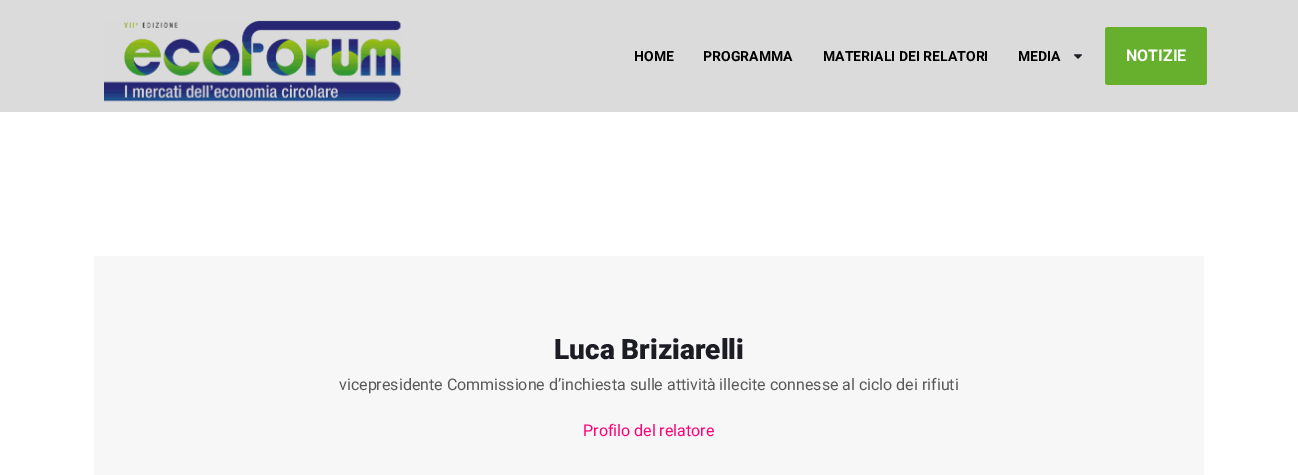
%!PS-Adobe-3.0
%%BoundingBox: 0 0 1298 475
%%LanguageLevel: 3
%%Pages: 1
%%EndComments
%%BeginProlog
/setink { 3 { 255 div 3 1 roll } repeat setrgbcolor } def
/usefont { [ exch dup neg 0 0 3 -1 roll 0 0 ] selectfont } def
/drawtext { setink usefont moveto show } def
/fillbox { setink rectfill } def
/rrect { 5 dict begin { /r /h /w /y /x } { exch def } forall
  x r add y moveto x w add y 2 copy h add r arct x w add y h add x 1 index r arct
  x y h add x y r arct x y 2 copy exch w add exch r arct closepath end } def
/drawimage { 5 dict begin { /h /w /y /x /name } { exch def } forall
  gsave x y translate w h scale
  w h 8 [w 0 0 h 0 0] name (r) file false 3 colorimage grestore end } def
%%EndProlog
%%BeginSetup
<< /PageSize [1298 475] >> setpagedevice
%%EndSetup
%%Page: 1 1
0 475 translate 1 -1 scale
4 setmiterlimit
0 0 1298 475 255 255 255 fillbox
0 0 1298 112 219 219 219 fillbox
(assets/img1.rgb) 104 20 298 82 drawimage
(HOME) 634 61 /Roboto-Bold 14 0 0 0 drawtext
(PROGRAMMA) 703 61 /Roboto-Bold 14 0 0 0 drawtext
(MATERIALI DEI RELATORI) 823 61 /Roboto-Bold 14 0 0 0 drawtext
(MEDIA) 1018 61 /Roboto-Bold 14 0 0 0 drawtext
(assets/img2.rgb) 1074 54 8 5 drawimage
102 176 46 setink
1105 27 102 58 3 rrect fill
(NOTIZIE) 1126 61 /Roboto-Bold 16 255 255 255 drawtext
94 256 1110 219 247 247 247 fillbox
(Luca Briziarelli) 554 359 /Roboto-Black 28 28 28 36 drawtext
(vicepresidente Commissione d’inchiesta sulle attività illecite connesse al ciclo dei rifiuti) 339 390 /Roboto-Regular 16 90 90 90 drawtext
(Profilo del relatore) 583 436 /Roboto-Regular 16 255 0 122 drawtext
showpage
%%EOF
